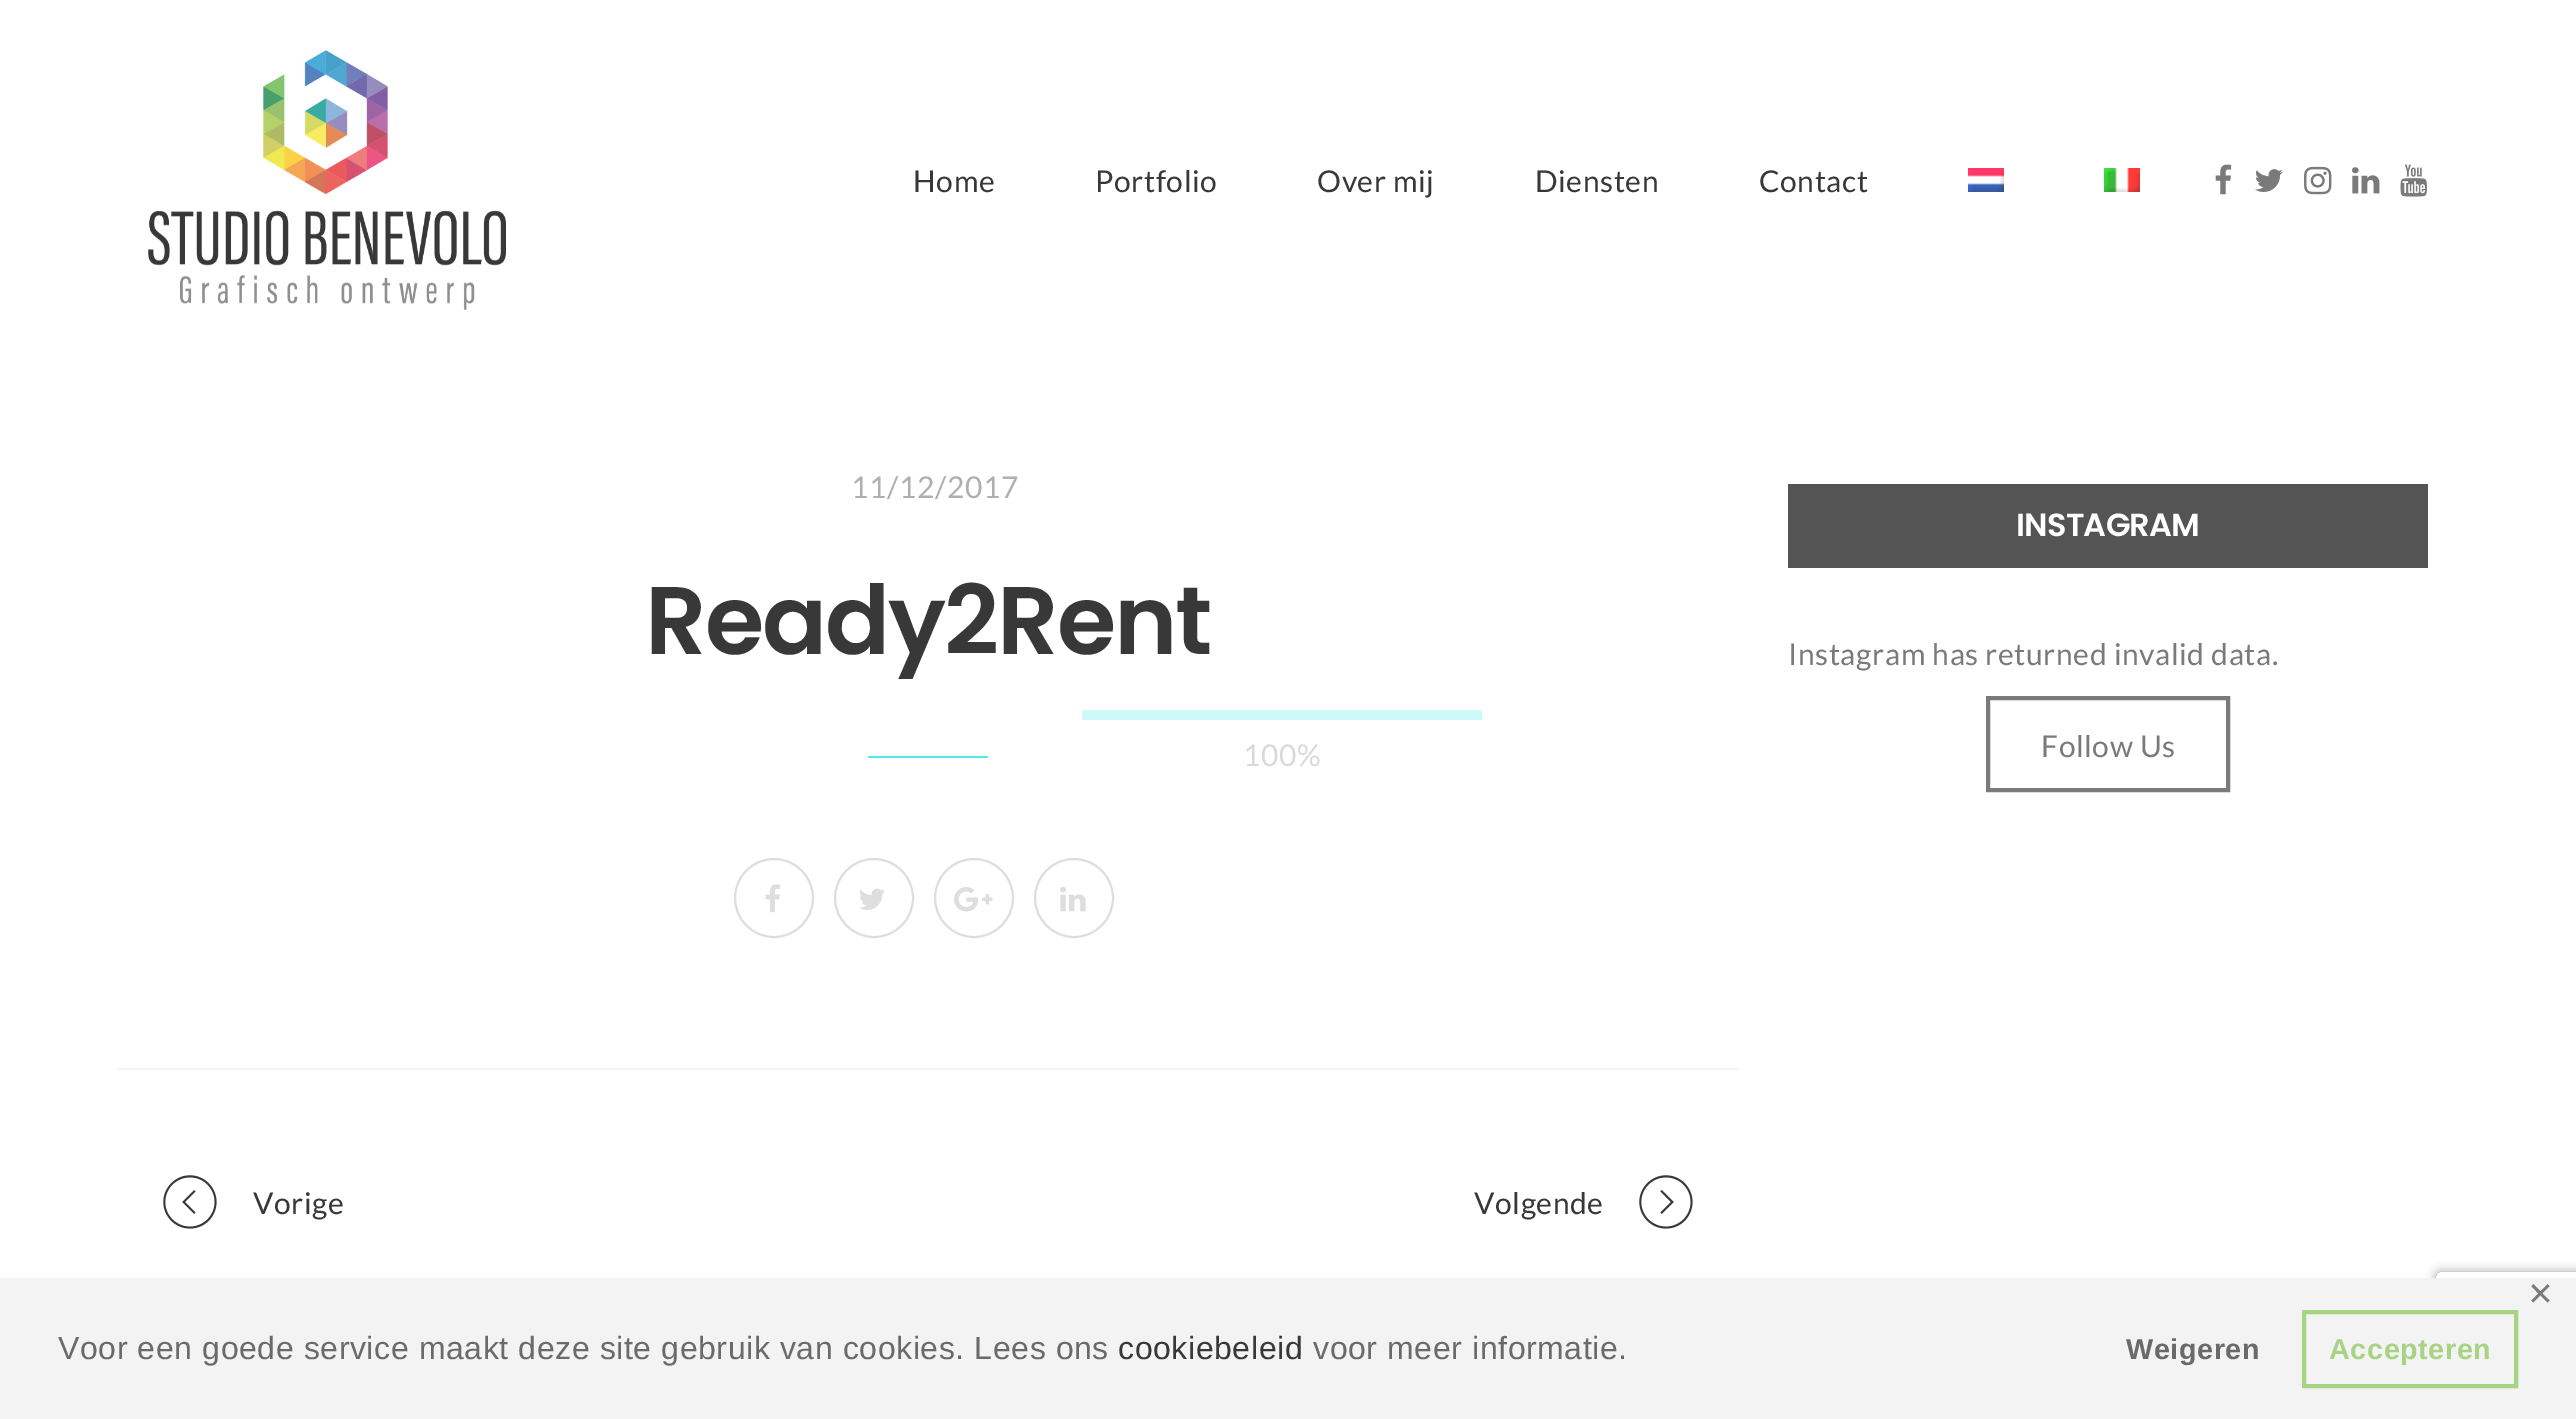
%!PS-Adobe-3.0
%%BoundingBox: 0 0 2576 1419
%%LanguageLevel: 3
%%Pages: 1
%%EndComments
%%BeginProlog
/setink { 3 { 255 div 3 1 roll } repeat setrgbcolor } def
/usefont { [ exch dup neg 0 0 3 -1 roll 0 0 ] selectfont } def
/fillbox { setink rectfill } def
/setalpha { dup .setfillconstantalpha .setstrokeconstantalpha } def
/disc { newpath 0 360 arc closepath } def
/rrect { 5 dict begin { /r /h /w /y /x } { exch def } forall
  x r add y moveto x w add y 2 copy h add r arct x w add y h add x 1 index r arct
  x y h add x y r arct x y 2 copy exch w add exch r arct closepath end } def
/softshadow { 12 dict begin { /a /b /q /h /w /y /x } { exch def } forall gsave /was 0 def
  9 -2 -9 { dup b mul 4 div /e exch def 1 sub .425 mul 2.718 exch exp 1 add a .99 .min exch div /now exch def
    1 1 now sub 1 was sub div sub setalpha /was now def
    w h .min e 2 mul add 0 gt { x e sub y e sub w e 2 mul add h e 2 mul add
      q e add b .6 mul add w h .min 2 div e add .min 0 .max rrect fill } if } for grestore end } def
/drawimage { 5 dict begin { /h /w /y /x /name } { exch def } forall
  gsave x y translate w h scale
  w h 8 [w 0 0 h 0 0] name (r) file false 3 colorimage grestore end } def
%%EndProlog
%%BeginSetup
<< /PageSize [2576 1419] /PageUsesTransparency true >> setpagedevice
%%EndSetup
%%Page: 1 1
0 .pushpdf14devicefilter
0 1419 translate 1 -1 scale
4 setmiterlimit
0 0 2576 1419 255 255 255 fillbox
(assets/img1.rgb) 148 50 358 260 drawimage
/Lato-Regular 30 usefont
56 56 56 setink
913 192 moveto 0.6 0 (Home) ashow
1095 192 moveto 0.6 0 (Portfolio) ashow
1317 192 moveto 0.6 0 (Over mij) ashow
1535 192 moveto 0.6 0 (Diensten) ashow
1759 192 moveto 0.6 0 (Contact) ashow
(assets/img2.rgb) 1968 168 36 24 drawimage
(assets/img3.rgb) 2104 168 36 24 drawimage
(assets/img4.rgb) 2215 164 17 31 drawimage
(assets/img5.rgb) 2255 169 28 23 drawimage
(assets/img6.rgb) 2304 166 28 29 drawimage
(assets/img7.rgb) 2352 167 28 27 drawimage
(assets/img8.rgb) 2400 164 27 33 drawimage
175 175 175 setink
851 498 moveto 0.6 0 (11/12/2017) ashow
/Poppins-SemiBold 96 usefont
56 56 56 setink
645 654 moveto -2 0 (Ready2Rent) ashow
868 756 120 2 83 233 235 fillbox
222 222 222 setink
2 setlinewidth
774 898 39 disc stroke
(assets/img9.rgb) 765 884 15 29 drawimage
874 898 39 disc stroke
(assets/img10.rgb) 859 888 26 22 drawimage
974 898 39 disc stroke
(assets/img11.rgb) 954 887 39 25 drawimage
1074 898 39 disc stroke
(assets/img12.rgb) 1060 886 26 26 drawimage
118 1068 1620 2 243 243 243 fillbox
(assets/img13.rgb) 163 1175 54 54 drawimage
/Lato-Regular 30 usefont
56 56 56 setink
253 1214 moveto 0.6 0 (Vorige) ashow
1474 1214 moveto 0.6 0 (Volgende) ashow
(assets/img14.rgb) 1639 1175 54 54 drawimage
1788 484 640 84 84 84 84 fillbox
/Poppins-SemiBold 32 usefont
255 255 255 setink
2016 536 moveto -0.75 0 (INSTAGRAM) ashow
/Lato-Regular 30 usefont
122 122 122 setink
1788 665 moveto 0.6 0 (Instagram has returned invalid data.) ashow
4 setlinewidth
1988 698 240 92 rectstroke
2041 757 moveto 0.6 0 (Follow Us) ashow
1082 710 400 10 206 249 249 fillbox
217 217 217 setink
1243 766 moveto 0.6 0 (100%) ashow
gsave
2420 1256 moveto 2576 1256 lineto 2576 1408 lineto 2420 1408 lineto closepath 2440 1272 moveto 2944 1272 lineto 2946 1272 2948 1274 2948 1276 curveto 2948 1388 lineto 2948 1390 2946 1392 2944 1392 curveto 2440 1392 lineto 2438 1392 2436 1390 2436 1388 curveto 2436 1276 lineto 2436 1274 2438 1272 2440 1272 curveto closepath eoclip newpath
156 156 156 setink
2436 1272 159 120 4 5 1 softshadow
grestore
0 1278 2576 141 243 243 243 fillbox
/DejaVuSans-Regular 32 usefont
122 122 122 setink
2527 1305 moveto 0.6 0 (✕) ashow
/LiberationSans-Regular 32 usefont
106 106 106 setink
58 1359 moveto 0.6 0 (Voor een goede service maakt deze site gebruik van cookies. Lees ons) ashow
56 56 56 setink
1118 1359 moveto 0.6 0 (cookiebeleid) ashow
106 106 106 setink
1313 1359 moveto 0.6 0 (voor meer informatie.) ashow
/LiberationSans-Bold 28.75 usefont
2126 1359 moveto 0.6 0 (Weigeren) ashow
167 211 131 setink
2304 1312 212 74 rectstroke
2329 1359 moveto 0.6 0 (Accepteren) ashow
.poppdf14devicefilter showpage
%%EOF
